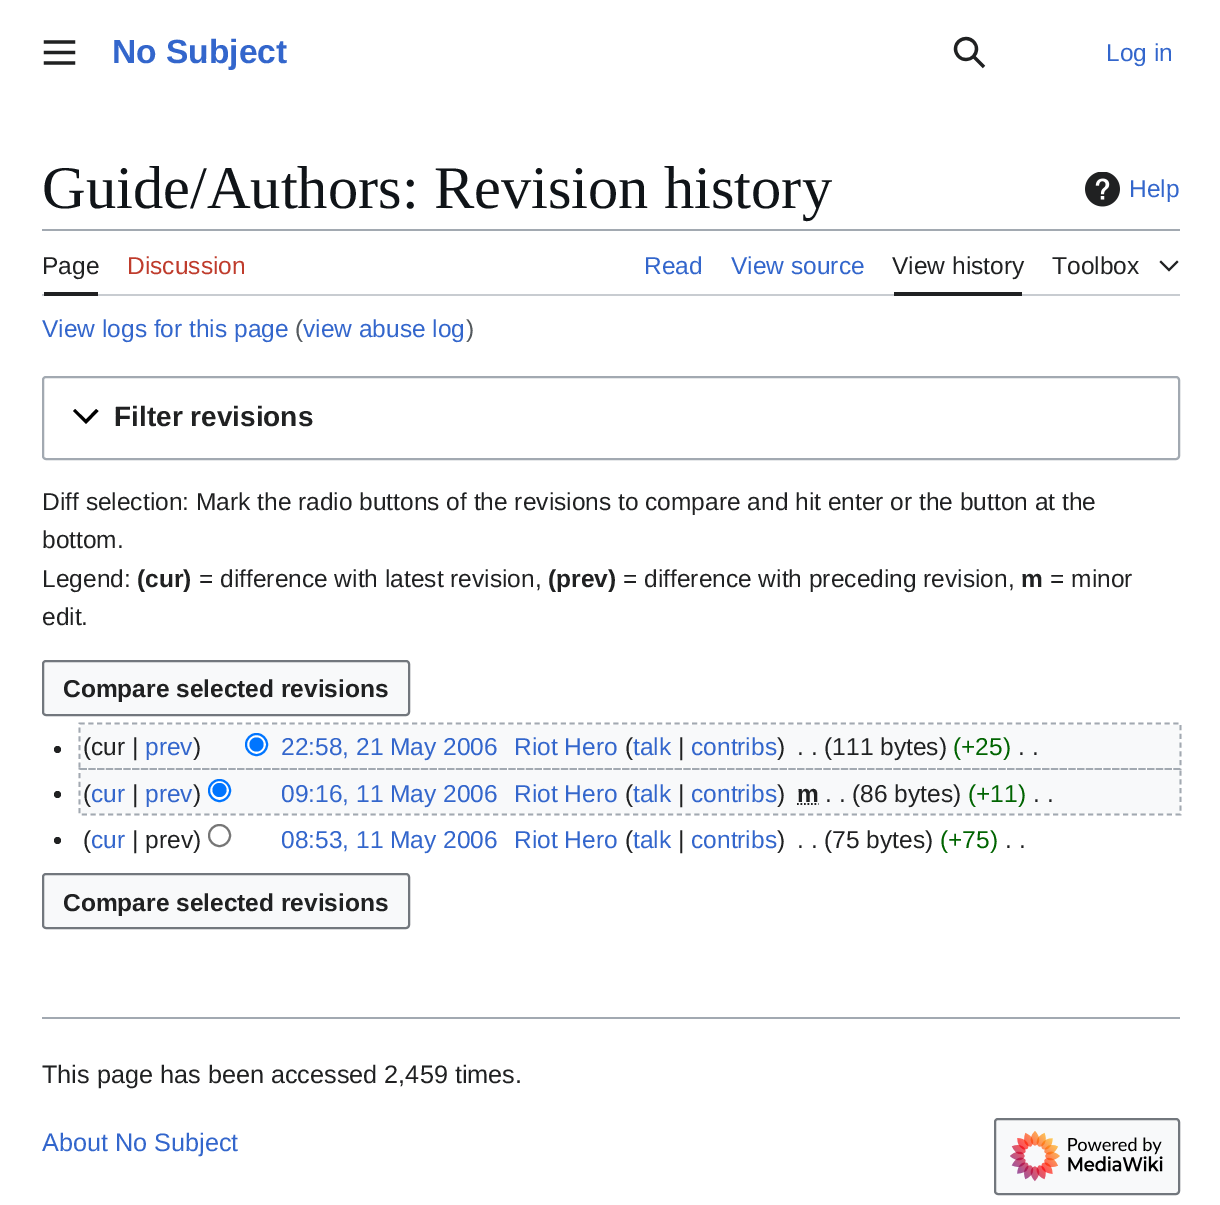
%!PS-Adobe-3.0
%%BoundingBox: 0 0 1220 1205
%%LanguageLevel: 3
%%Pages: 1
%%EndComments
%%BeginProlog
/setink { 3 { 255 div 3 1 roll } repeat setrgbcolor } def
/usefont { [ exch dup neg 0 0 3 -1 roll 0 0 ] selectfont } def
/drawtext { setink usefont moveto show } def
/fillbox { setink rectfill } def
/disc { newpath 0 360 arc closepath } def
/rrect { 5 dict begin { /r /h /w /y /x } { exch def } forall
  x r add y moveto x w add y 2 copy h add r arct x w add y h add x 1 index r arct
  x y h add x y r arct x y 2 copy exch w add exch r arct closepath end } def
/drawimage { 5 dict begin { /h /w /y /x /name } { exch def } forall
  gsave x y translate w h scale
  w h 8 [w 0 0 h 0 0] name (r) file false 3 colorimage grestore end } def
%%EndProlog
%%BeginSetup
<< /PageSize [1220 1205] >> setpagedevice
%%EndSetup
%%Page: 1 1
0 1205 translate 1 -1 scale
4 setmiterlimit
0 0 1220 1205 255 255 255 fillbox
(assets/img1.rgb) 43 40 33 25 drawimage
(No Subject) 112 63 /LiberationSans-Bold 33.5 51 102 204 drawtext
(assets/img2.rgb) 953 36 33 33 drawimage
(Log in) 1106 61 /LiberationSans-Regular 24.5 51 102 204 drawtext
(Guide/Authors: Revision history) 42 208 /LiberationSerif-Regular 60.5 16 20 24 drawtext
(assets/img3.rgb) 1085 172 35 35 drawimage
(Help) 1129 197 /LiberationSans-Regular 24.5 51 102 204 drawtext
42 229 1138 2 162 169 177 fillbox
200 204 209 setink
42 294 moveto 42 296 lineto 1180 296 lineto 1180 233 lineto 1180 294 lineto closepath fill
44 292 54 4 32 33 34 fillbox
(Page) 42 274 /LiberationSans-Regular 24.5 32 33 34 drawtext
(Discussion) 127 274 /LiberationSans-Regular 24.5 191 60 44 drawtext
(Read) 644 274 /LiberationSans-Regular 24.5 51 102 204 drawtext
(View source) 731 274 /LiberationSans-Regular 24.5 51 102 204 drawtext
894 292 128 4 32 33 34 fillbox
(View history) 892 274 /LiberationSans-Regular 24.5 32 33 34 drawtext
(Toolbox) 1052 274 /LiberationSans-Regular 24.5 32 33 34 drawtext
1177 260.5 moveto 1169 268.5 lineto 1161 260.5 lineto 1159.5 262 lineto 1169 271.5 lineto 1178.5 262 lineto closepath fill
(View logs for this page) 42 337 /LiberationSans-Regular 24.5 51 102 204 drawtext
(\() 295 337 /LiberationSans-Regular 24.5 84 89 93 drawtext
(view abuse log) 303 337 /LiberationSans-Regular 24.5 51 102 204 drawtext
(\)) 466 337 /LiberationSans-Regular 24.5 84 89 93 drawtext
162 169 177 setink
2 setlinewidth
43 377 1136 82 3 rrect stroke
0 0 0 setink
96 409 moveto 86 419.5 lineto 75 409 lineto 73 411 lineto 86 424 lineto 98.5 411 lineto closepath fill
(Filter revisions) 114 426 /LiberationSans-Bold 28 32 33 34 drawtext
(Diff selection: Mark the radio buttons of the revisions to compare and hit enter or the button at the) 42 510 /LiberationSans-Regular 24.5 32 33 34 drawtext
(bottom.) 42 548 /LiberationSans-Regular 24.5 32 33 34 drawtext
(Legend:) 42 587 /LiberationSans-Regular 24.5 32 33 34 drawtext
(\(cur\)) 137 587 /LiberationSans-Bold 24.5 32 33 34 drawtext
(= difference with latest revision,) 199 587 /LiberationSans-Regular 24.5 32 33 34 drawtext
(\(prev\)) 548 587 /LiberationSans-Bold 24.5 32 33 34 drawtext
(= difference with preceding revision,) 623 587 /LiberationSans-Regular 24.5 32 33 34 drawtext
(m) 1021 587 /LiberationSans-Bold 24.5 32 33 34 drawtext
(= minor) 1050 587 /LiberationSans-Regular 24.5 32 33 34 drawtext
(edit.) 42 625 /LiberationSans-Regular 24.5 32 33 34 drawtext
248 249 250 setink
43 661 366 54 3 rrect gsave fill grestore
114 119 125 setink
stroke
(Compare selected revisions) 63 697 /LiberationSans-Bold 24.5 32 33 34 drawtext
81 725 1099 43 248 249 250 fillbox
(\(cur |) 83 755 /LiberationSans-Regular 24.5 32 33 34 drawtext
(prev) 145 755 /LiberationSans-Regular 24.5 51 102 204 drawtext
(\)) 193 755 /LiberationSans-Regular 24.5 32 33 34 drawtext
255 255 255 setink
256.5 744.5 10.5 disc gsave fill grestore
0 117 255 setink
stroke
256.5 744.5 7 disc fill
(22:58, 21 May 2006) 281 755 /LiberationSans-Regular 24.5 51 102 204 drawtext
(Riot Hero) 514 755 /LiberationSans-Regular 24.5 51 102 204 drawtext
(\() 625 755 /LiberationSans-Regular 24.5 32 33 34 drawtext
(talk) 633 755 /LiberationSans-Regular 24.5 51 102 204 drawtext
(|) 678 755 /LiberationSans-Regular 24.5 32 33 34 drawtext
(contribs) 691 755 /LiberationSans-Regular 24.5 51 102 204 drawtext
(\)) 777 755 /LiberationSans-Regular 24.5 32 33 34 drawtext
(. . \(111 bytes\)) 797 755 /LiberationSans-Regular 24.5 32 33 34 drawtext
(\(+25\)) 953 755 /LiberationSans-Regular 24.5 0 100 0 drawtext
(. .) 1018 755 /LiberationSans-Regular 24.5 32 33 34 drawtext
162 169 177 setink
1.8 setlinewidth
[5.25 3.5] 0 setdash
79.5 723.5 moveto 1180.5 723.5 lineto 1180.5 769 lineto 79.5 769 lineto closepath stroke
32 33 34 setink
57.5 749.5 3.5 disc fill
81 770 1099 44 248 249 250 fillbox
(\() 83 802 /LiberationSans-Regular 24.5 32 33 34 drawtext
(cur) 91 802 /LiberationSans-Regular 24.5 51 102 204 drawtext
(|) 132 802 /LiberationSans-Regular 24.5 32 33 34 drawtext
(prev) 145 802 /LiberationSans-Regular 24.5 51 102 204 drawtext
(\)) 193 802 /LiberationSans-Regular 24.5 32 33 34 drawtext
255 255 255 setink
219.5 790.5 10.5 disc gsave fill grestore
0 117 255 setink
2 setlinewidth
[] 0 setdash
stroke
219.5 790 7 disc fill
(09:16, 11 May 2006) 281 802 /LiberationSans-Regular 24.5 51 102 204 drawtext
(Riot Hero) 514 802 /LiberationSans-Regular 24.5 51 102 204 drawtext
(\() 625 802 /LiberationSans-Regular 24.5 32 33 34 drawtext
(talk) 633 802 /LiberationSans-Regular 24.5 51 102 204 drawtext
(|) 678 802 /LiberationSans-Regular 24.5 32 33 34 drawtext
(contribs) 691 802 /LiberationSans-Regular 24.5 51 102 204 drawtext
(\)) 777 802 /LiberationSans-Regular 24.5 32 33 34 drawtext
(m) 797 802 /LiberationSans-Bold 24.5 32 33 34 drawtext
1.8 setlinewidth
[1.75 1.75] 0 setdash
797 804 moveto 818.5 804 lineto stroke
(. . \(86 bytes\)) 825 802 /LiberationSans-Regular 24.5 32 33 34 drawtext
(\(+11\)) 968 802 /LiberationSans-Regular 24.5 0 100 0 drawtext
(. .) 1033 802 /LiberationSans-Regular 24.5 32 33 34 drawtext
162 169 177 setink
[5.25 3.5] 0 setdash
79.5 769 moveto 1180.5 769 lineto 1180.5 814.5 lineto 79.5 814.5 lineto closepath stroke
32 33 34 setink
57.5 794.5 3.5 disc fill
57.5 840.5 3.5 disc fill
(\() 83 848 /LiberationSans-Regular 24.5 32 33 34 drawtext
(cur) 91 848 /LiberationSans-Regular 24.5 51 102 204 drawtext
(| prev\)) 132 848 /LiberationSans-Regular 24.5 32 33 34 drawtext
118 118 118 setink
2 setlinewidth
[] 0 setdash
219.5 835.5 10.5 disc stroke
(08:53, 11 May 2006) 281 848 /LiberationSans-Regular 24.5 51 102 204 drawtext
(Riot Hero) 514 848 /LiberationSans-Regular 24.5 51 102 204 drawtext
(\() 625 848 /LiberationSans-Regular 24.5 32 33 34 drawtext
(talk) 633 848 /LiberationSans-Regular 24.5 51 102 204 drawtext
(|) 678 848 /LiberationSans-Regular 24.5 32 33 34 drawtext
(contribs) 691 848 /LiberationSans-Regular 24.5 51 102 204 drawtext
(\)) 777 848 /LiberationSans-Regular 24.5 32 33 34 drawtext
(. . \(75 bytes\)) 797 848 /LiberationSans-Regular 24.5 32 33 34 drawtext
(\(+75\)) 940 848 /LiberationSans-Regular 24.5 0 100 0 drawtext
(. .) 1005 848 /LiberationSans-Regular 24.5 32 33 34 drawtext
248 249 250 setink
43 874 366 54 3 rrect gsave fill grestore
114 119 125 setink
stroke
(Compare selected revisions) 63 911 /LiberationSans-Bold 24.5 32 33 34 drawtext
42 1017 1138 2 162 169 177 fillbox
(This page has been accessed 2,459 times.) 42 1083 /LiberationSans-Regular 25.25 32 33 34 drawtext
(About No Subject) 42 1151 /LiberationSans-Regular 25.25 51 102 204 drawtext
248 249 250 setink
995 1119 184 75 3 rrect gsave fill grestore
114 119 125 setink
stroke
(assets/img4.rgb) 1010 1131 153 51 drawimage
showpage
%%EOF
